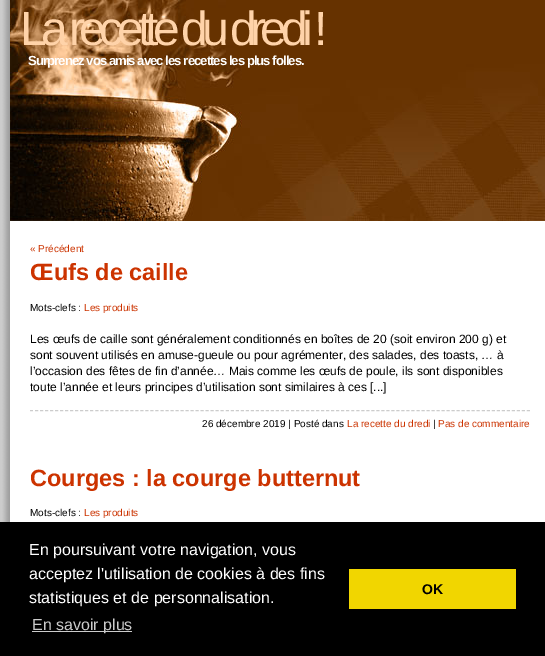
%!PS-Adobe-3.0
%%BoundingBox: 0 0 545 656
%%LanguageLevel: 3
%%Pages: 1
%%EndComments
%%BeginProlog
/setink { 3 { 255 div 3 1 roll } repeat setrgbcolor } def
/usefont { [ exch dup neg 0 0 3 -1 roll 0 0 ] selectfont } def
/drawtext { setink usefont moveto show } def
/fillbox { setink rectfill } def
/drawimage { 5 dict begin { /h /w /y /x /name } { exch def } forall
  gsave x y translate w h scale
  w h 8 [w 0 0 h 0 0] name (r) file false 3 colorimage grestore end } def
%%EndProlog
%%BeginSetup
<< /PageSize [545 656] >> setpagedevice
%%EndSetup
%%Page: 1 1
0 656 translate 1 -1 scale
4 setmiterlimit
0 0 545 656 255 255 255 fillbox
(assets/img1.rgb) 0 0 10 522 drawimage
(assets/img2.rgb) 10 0 535 221 drawimage
/LiberationSans-Regular 48 usefont
255 211 169 setink
20 45 moveto -6 0 (La recette du dredi !) ashow
/LiberationSans-Bold 13.2 usefont
255 255 255 setink
28 65 moveto -1 0 (Surprenez vos amis avec les recettes les plus folles.) ashow
(« Précédent) 30 252 /LiberationSans-Regular 10 204 51 0 drawtext
(Œufs de caille) 30 280 /LiberationSans-Bold 23.5 204 51 0 drawtext
(Mots-clefs :) 30 311 /LiberationSans-Regular 10 0 0 0 drawtext
(Les produits) 84 311 /LiberationSans-Regular 10 204 51 0 drawtext
(Les œufs de caille sont généralement conditionnés en boîtes de 20 \(soit environ 200 g\) et) 30 343 /LiberationSans-Regular 12 0 0 0 drawtext
(sont souvent utilisés en amuse-gueule ou pour agrémenter, des salades, des toasts, … à) 30 359 /LiberationSans-Regular 12 0 0 0 drawtext
(l’occasion des fêtes de fin d’année… Mais comme les œufs de poule, ils sont disponibles) 30 375 /LiberationSans-Regular 12 0 0 0 drawtext
(toute l’année et leurs principes d’utilisation sont similaires à ces [...]) 30 391 /LiberationSans-Regular 12 0 0 0 drawtext
204 204 204 setink
[3 2.02] 0 setdash
30 410.5 moveto 530 410.5 lineto stroke
(26 décembre 2019 | Posté dans) 202 427 /LiberationSans-Regular 10 0 0 0 drawtext
(La recette du dredi) 347 427 /LiberationSans-Regular 10 204 51 0 drawtext
(|) 433 427 /LiberationSans-Regular 10 0 0 0 drawtext
(Pas de commentaire) 438 427 /LiberationSans-Regular 10 204 51 0 drawtext
(Courges : la courge butternut) 30 486 /LiberationSans-Bold 23.5 204 51 0 drawtext
(Mots-clefs :) 30 516 /LiberationSans-Regular 10 0 0 0 drawtext
(Les produits) 84 516 /LiberationSans-Regular 10 204 51 0 drawtext
0 522 545 134 0 0 0 fillbox
(En poursuivant votre navigation, vous) 29 555 /LiberationSans-Regular 16 255 255 255 drawtext
(acceptez l'utilisation de cookies à des fins) 29 579 /LiberationSans-Regular 16 255 255 255 drawtext
(statistiques et de personnalisation.) 29 603 /LiberationSans-Regular 16 255 255 255 drawtext
32 631 100 1 204 204 204 fillbox
(En savoir plus) 32 630 /LiberationSans-Regular 16 204 204 204 drawtext
349 569 167 40 241 214 0 fillbox
(OK) 422 594 /LiberationSans-Bold 14 0 0 0 drawtext
showpage
%%EOF
